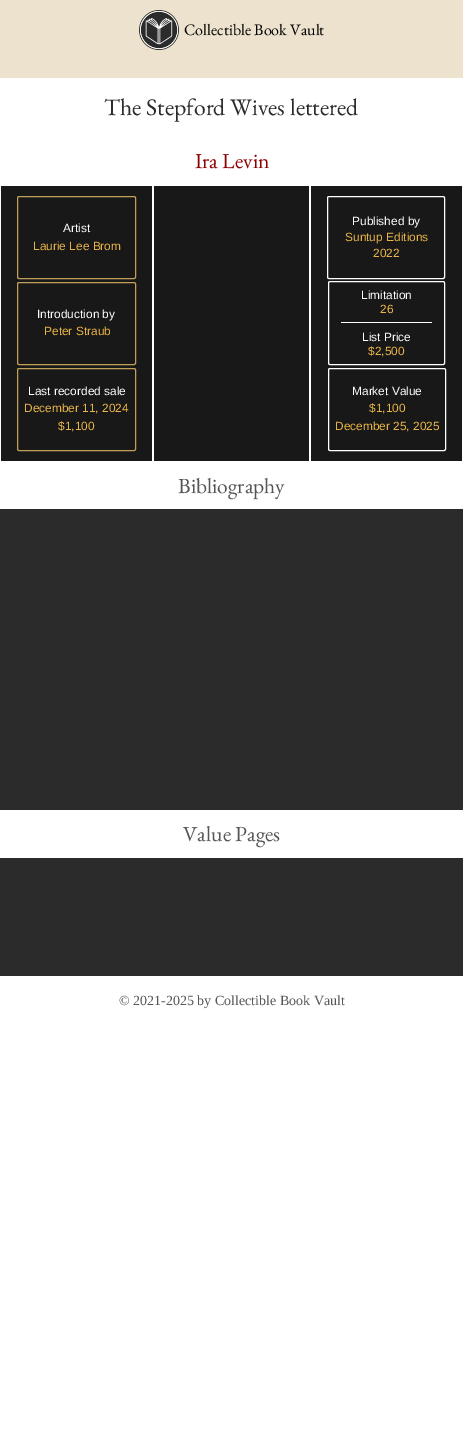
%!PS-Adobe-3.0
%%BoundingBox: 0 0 463 1436
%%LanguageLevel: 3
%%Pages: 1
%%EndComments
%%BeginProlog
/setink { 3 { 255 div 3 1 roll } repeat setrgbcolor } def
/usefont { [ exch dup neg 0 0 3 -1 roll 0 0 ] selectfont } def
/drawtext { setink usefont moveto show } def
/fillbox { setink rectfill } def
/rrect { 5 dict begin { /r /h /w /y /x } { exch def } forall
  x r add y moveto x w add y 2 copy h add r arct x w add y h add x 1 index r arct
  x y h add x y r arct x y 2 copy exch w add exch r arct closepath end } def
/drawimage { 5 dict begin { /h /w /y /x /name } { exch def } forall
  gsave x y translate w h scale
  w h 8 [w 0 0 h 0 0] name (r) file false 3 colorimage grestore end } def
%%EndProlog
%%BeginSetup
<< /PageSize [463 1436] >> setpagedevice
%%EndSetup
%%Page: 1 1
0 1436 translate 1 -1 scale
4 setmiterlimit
0 0 463 1436 255 255 255 fillbox
0 0 463 78 236 226 205 fillbox
(assets/img1.rgb) 139 10 40 40 drawimage
(Collectible Book Vault) 184 35 /EBGaramond-Regular 16 0 0 0 drawtext
(The Stepford Wives lettered) 104 115 /EBGaramond-Regular 23.75 43 43 43 drawtext
(Ira Levin) 195 168 /EBGaramond-Regular 21.5 139 0 0 drawtext
1 186 151 275 25 24 24 fillbox
193 159 88 setink
17.5 196.5 118 82 1.5 rrect stroke
(Artist) 63 232 /LiberationSans-Regular 11.9 255 255 255 drawtext
(Laurie Lee Brom) 33 250 /LiberationSans-Regular 11.9 232 180 72 drawtext
193 159 88 setink
17.5 282.5 118 82 1.5 rrect stroke
(Introduction by) 37 318 /LiberationSans-Regular 11.9 255 255 255 drawtext
(Peter Straub) 44 335 /LiberationSans-Regular 11.9 232 180 72 drawtext
193 159 88 setink
17.5 368.5 118 82 1.5 rrect stroke
(Last recorded sale) 28 395 /LiberationSans-Regular 11.9 255 255 255 drawtext
(December 11, 2024) 24 412 /LiberationSans-Regular 11.9 232 180 72 drawtext
($1,100) 58 430 /LiberationSans-Regular 11.9 232 180 72 drawtext
154 186 155 275 25 24 24 fillbox
311 186 151 275 25 24 24 fillbox
255 255 255 setink
327.5 196.5 117 82 1.5 rrect stroke
(Published by) 352 225 /LiberationSans-Regular 11.9 255 255 255 drawtext
(Suntup Editions) 345 241 /LiberationSans-Regular 11.9 232 180 72 drawtext
(2022) 373 257 /LiberationSans-Regular 11.9 232 180 72 drawtext
255 255 255 setink
328.5 281.5 116 83 1.5 rrect stroke
(Limitation) 361 299 /LiberationSans-Regular 11.9 255 255 255 drawtext
(26) 380 313 /LiberationSans-Regular 11.9 232 180 72 drawtext
341 322 91 1 255 255 255 fillbox
(List Price) 362 341 /LiberationSans-Regular 11.9 255 255 255 drawtext
($2,500) 368 355 /LiberationSans-Regular 11.9 232 180 72 drawtext
255 255 255 setink
328.5 368.5 117 82 1.5 rrect stroke
(Market Value) 352 395 /LiberationSans-Regular 11.9 255 255 255 drawtext
($1,100) 369 412 /LiberationSans-Regular 11.9 232 180 72 drawtext
(December 25, 2025) 335 430 /LiberationSans-Regular 11.9 232 180 72 drawtext
(Bibliography) 178 493 /EBGaramond-Regular 21.5 85 85 85 drawtext
0 509 463 301 43 43 43 fillbox
(Value Pages) 183 841 /EBGaramond-Regular 21.5 85 85 85 drawtext
0 858 463 118 43 43 43 fillbox
(© 2021-2025 by Collectible Book Vault) 119 1005 /LiberationSerif-Regular 14 85 85 85 drawtext
showpage
%%EOF
